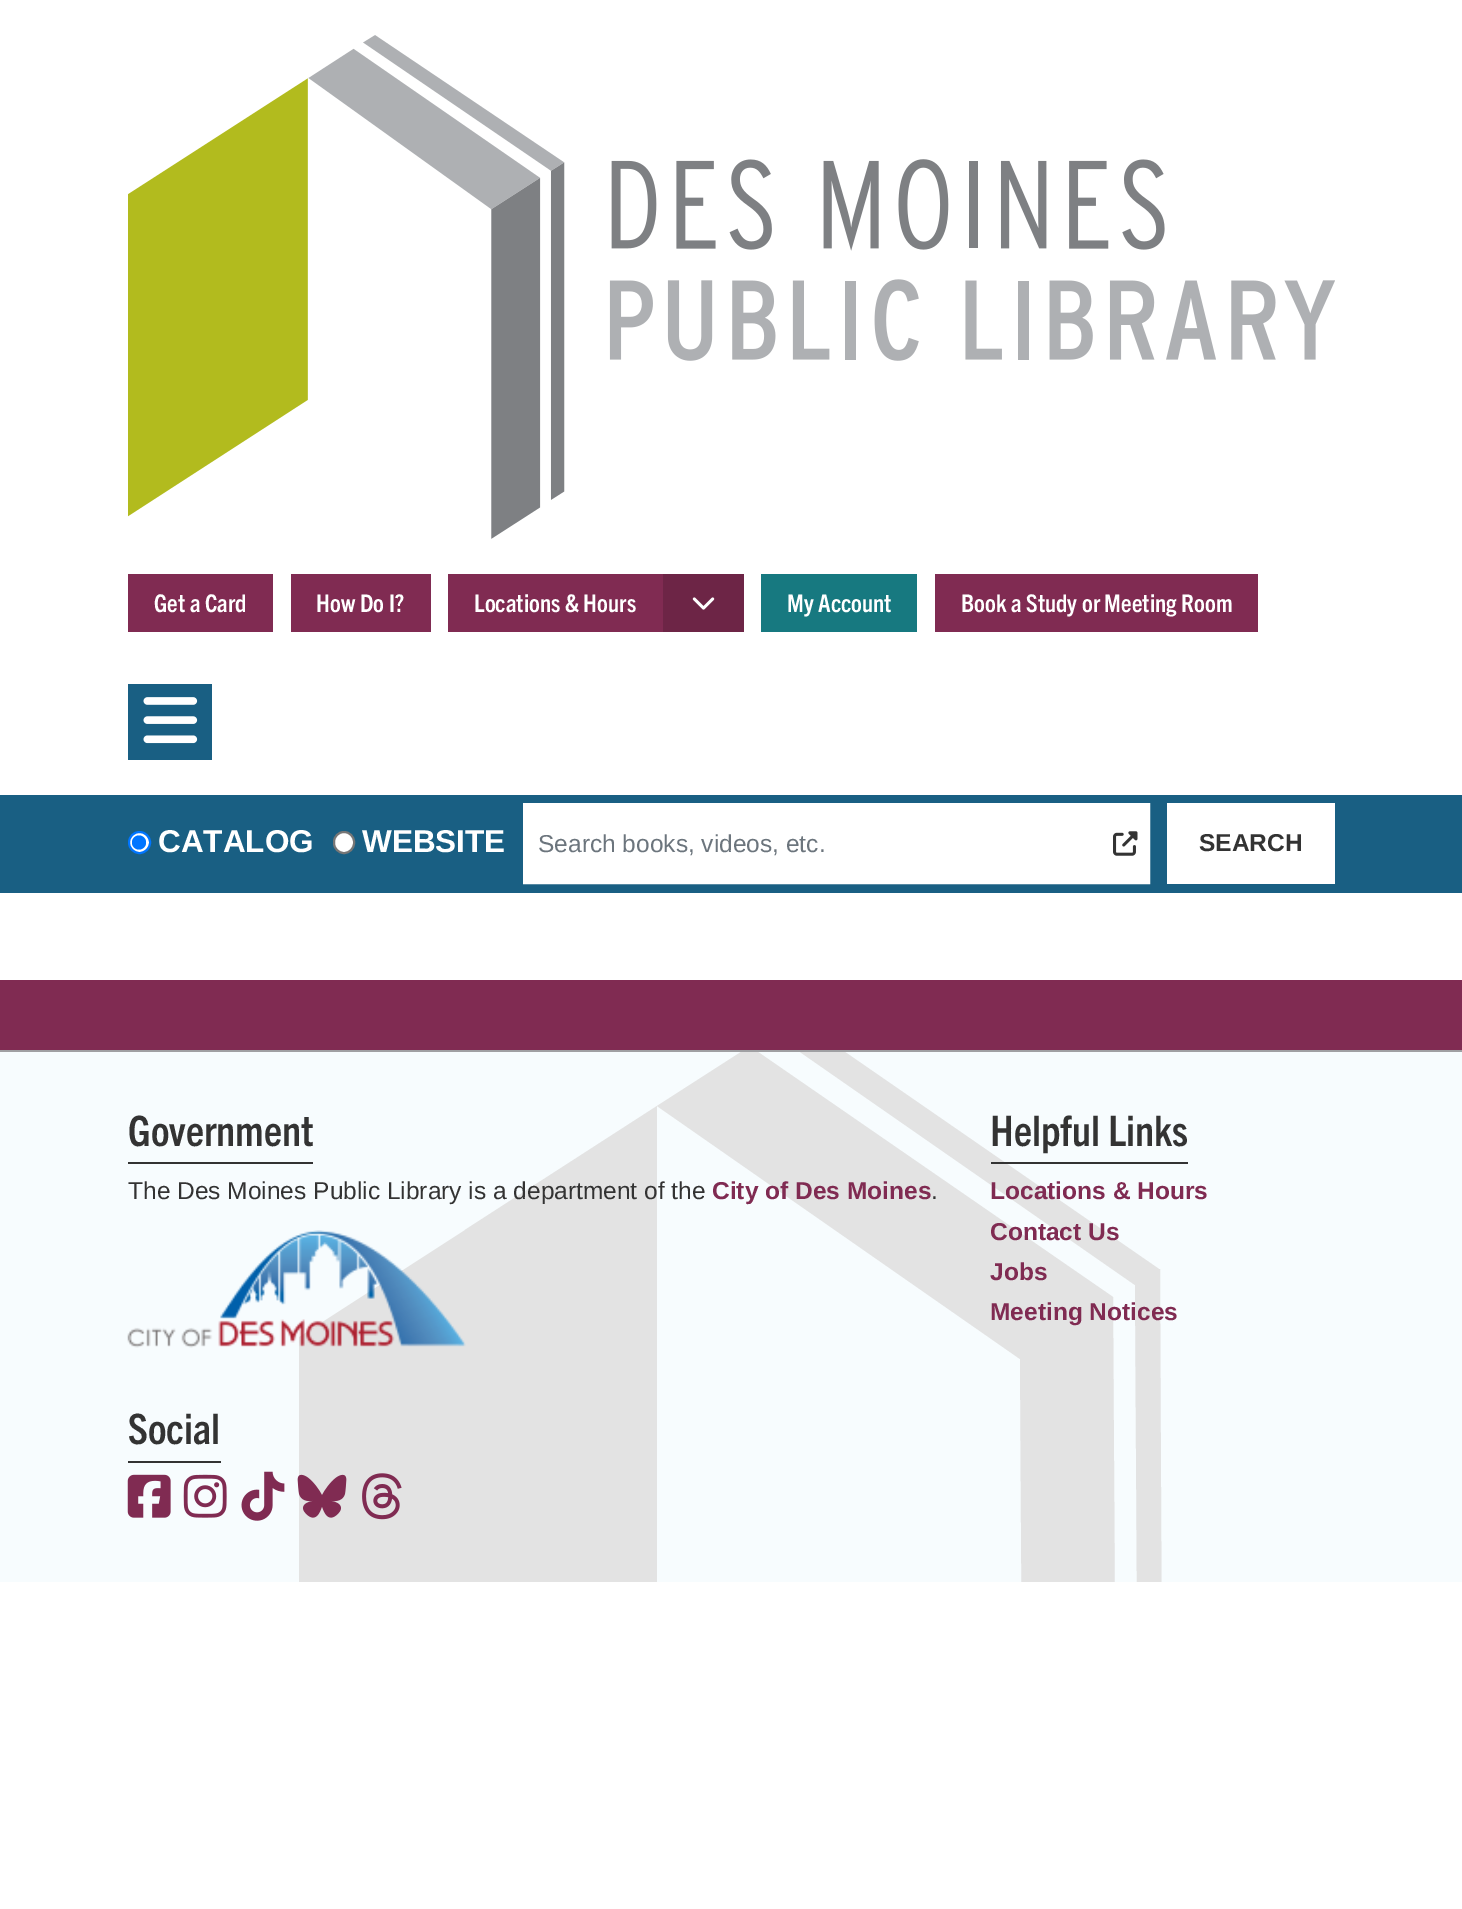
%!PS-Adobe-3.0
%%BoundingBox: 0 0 1462 1909
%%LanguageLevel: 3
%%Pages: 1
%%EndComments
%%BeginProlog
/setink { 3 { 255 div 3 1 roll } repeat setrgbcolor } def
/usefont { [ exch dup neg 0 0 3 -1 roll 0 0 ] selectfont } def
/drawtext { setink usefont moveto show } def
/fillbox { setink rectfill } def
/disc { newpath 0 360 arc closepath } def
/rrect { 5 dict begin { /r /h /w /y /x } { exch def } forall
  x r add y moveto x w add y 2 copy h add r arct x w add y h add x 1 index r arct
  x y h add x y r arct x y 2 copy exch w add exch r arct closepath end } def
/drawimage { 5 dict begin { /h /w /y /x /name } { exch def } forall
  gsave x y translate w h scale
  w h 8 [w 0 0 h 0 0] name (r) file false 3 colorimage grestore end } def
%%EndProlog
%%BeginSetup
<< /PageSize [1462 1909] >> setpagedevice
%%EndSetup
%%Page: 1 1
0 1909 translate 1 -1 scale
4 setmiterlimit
0 0 1462 1909 255 255 255 fillbox
(assets/img1.rgb) 128 35 1207 504 drawimage
128 574 145 58 128 43 82 fillbox
(Get a Card) 154 612 /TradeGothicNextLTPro-Bold 24.5 255 255 255 drawtext
291 574 140 58 128 43 82 fillbox
(How Do I?) 316 612 /TradeGothicNextLTPro-Bold 24.5 255 255 255 drawtext
448 574 215 58 128 43 82 fillbox
(Locations & Hours) 474 612 /TradeGothicNextLTPro-Bold 24.5 255 255 255 drawtext
663 574 81 58 109 37 70 fillbox
(assets/img2.rgb) 692 597 23 13 drawimage
761 574 156 58 23 121 128 fillbox
(My Account) 787 612 /TradeGothicNextLTPro-Bold 24.5 255 255 255 drawtext
935 574 323 58 128 43 82 fillbox
(Book a Study or Meeting Room) 961 612 /TradeGothicNextLTPro-Bold 24.5 255 255 255 drawtext
128 684 84 76 25 95 131 fillbox
(assets/img3.rgb) 143 697 55 47 drawimage
0 795 1462 98 25 95 131 fillbox
255 255 255 setink
139.5 842.5 10.5 disc gsave fill grestore
0 117 255 setink
2 setlinewidth
stroke
139 842.5 7 disc fill
(CATALOG) 158 852 /LiberationSans-Bold 31.5 255 255 255 drawtext
334 832 20 21 10 rrect gsave fill grestore
118 118 118 setink
stroke
(WEBSITE) 362 852 /LiberationSans-Bold 31.5 255 255 255 drawtext
524 804 moveto 1149 804 lineto 1149 883 lineto 524 883 lineto closepath gsave fill grestore
stroke
(Search books, videos, etc.) 538 852 /LiberationSans-Regular 24.5 108 117 125 drawtext
(assets/img4.rgb) 1113 831 25 25 drawimage
1167 803 168 81 255 255 255 fillbox
(SEARCH) 1199 851 /LiberationSans-Bold 24.5 51 51 51 drawtext
0 980 1462 70 128 43 82 fillbox
0 1052 1462 530 247 252 254 fillbox
gsave
0 1052 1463 530 rectclip
227 227 227 setink
1113 1297 moveto 758 1052 lineto 741 1052 lineto 657 1106 lineto 299 1337 lineto 299 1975 lineto 657 1746 lineto 657 1106 lineto 1020 1359 lineto 1024 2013 lineto 1117 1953 lineto closepath fill
1159 1269 moveto 845 1052 lineto 800 1052 lineto 1135 1285 lineto 1139 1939 lineto 1163 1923 lineto 1160 1269 lineto closepath fill
grestore
0 1050 1462 2 160 160 163 fillbox
128 1162 185 2 51 51 51 fillbox
(Government) 128 1146 /TradeGothicNextLTPro-Bold 42 51 51 51 drawtext
(The Des Moines Public Library is a department of the) 128 1199 /LiberationSans-Regular 24.5 51 51 51 drawtext
(City of Des Moines) 712 1199 /LiberationSans-Bold 24.5 128 43 82 drawtext
(.) 931 1199 /LiberationSans-Regular 24.5 51 51 51 drawtext
(assets/img5.rgb) 127 1230 339 118 drawimage
991 1162 197 2 51 51 51 fillbox
(Helpful Links) 990 1146 /TradeGothicNextLTPro-Bold 42 51 51 51 drawtext
(Locations & Hours) 990 1199 /LiberationSans-Bold 24.5 128 43 82 drawtext
(Contact Us) 990 1240 /LiberationSans-Bold 24.5 128 43 82 drawtext
(Jobs) 990 1280 /LiberationSans-Bold 24.5 128 43 82 drawtext
(Meeting Notices) 990 1320 /LiberationSans-Bold 24.5 128 43 82 drawtext
128 1461 93 2 51 51 51 fillbox
(Social) 128 1444 /TradeGothicNextLTPro-Bold 42 51 51 51 drawtext
(assets/img6.rgb) 127 1474 44 44 drawimage
(assets/img7.rgb) 183 1474 44 44 drawimage
(assets/img8.rgb) 241 1471 44 50 drawimage
(assets/img9.rgb) 297 1474 50 44 drawimage
(assets/img10.rgb) 362 1473 40 47 drawimage
showpage
%%EOF
